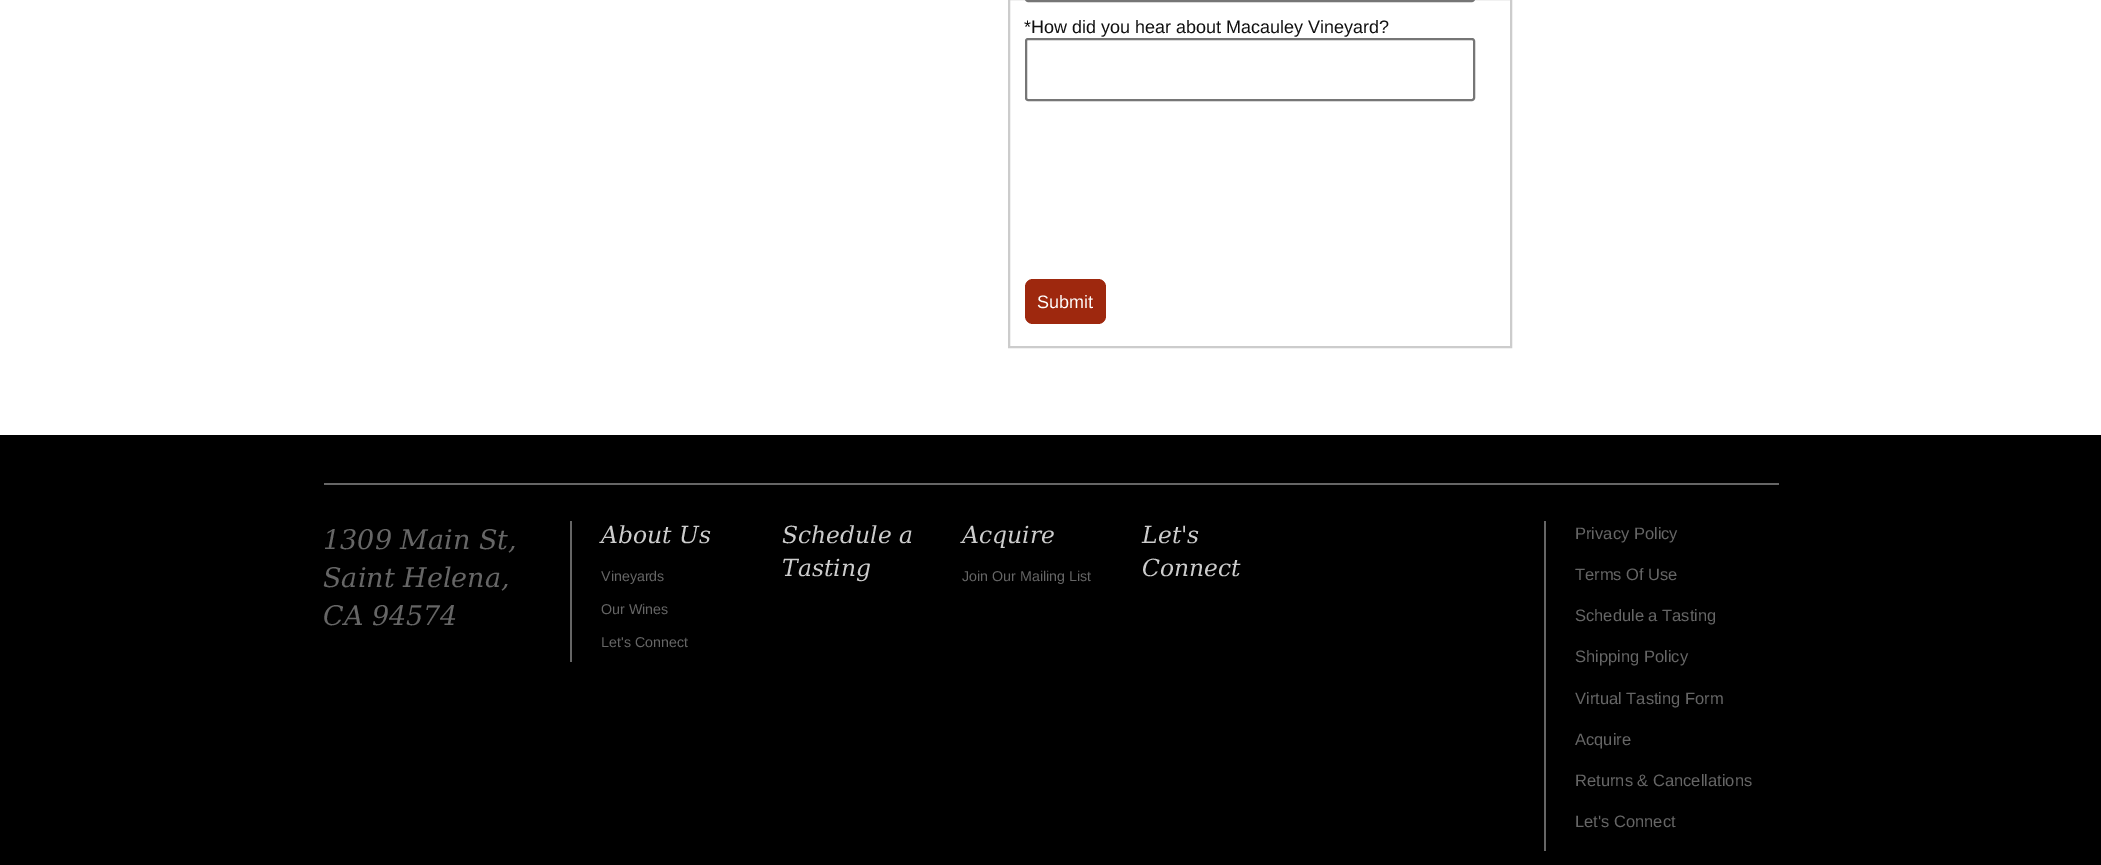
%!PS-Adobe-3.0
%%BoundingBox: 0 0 2101 865
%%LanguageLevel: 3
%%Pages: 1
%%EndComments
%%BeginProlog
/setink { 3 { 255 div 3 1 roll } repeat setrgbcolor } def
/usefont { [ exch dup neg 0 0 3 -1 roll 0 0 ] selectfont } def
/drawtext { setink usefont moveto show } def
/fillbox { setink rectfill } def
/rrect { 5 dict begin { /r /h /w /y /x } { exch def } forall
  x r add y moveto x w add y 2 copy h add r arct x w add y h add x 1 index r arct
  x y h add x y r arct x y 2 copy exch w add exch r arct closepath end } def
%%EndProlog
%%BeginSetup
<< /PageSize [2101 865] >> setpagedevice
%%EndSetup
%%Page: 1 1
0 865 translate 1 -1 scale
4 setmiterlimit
0 0 2101 865 0 0 0 fillbox
0 0 2101 435 255 255 255 fillbox
204 204 204 setink
2 setlinewidth
1009 -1 502 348 rectstroke
118 118 118 setink
1026 -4 448 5 2 rrect stroke
(*How did you hear about Macauley Vineyard?) 1024 33 /LiberationSans-Regular 18 17 17 17 drawtext
118 118 118 setink
1026 39 448 61 2 rrect stroke
158 40 14 setink
1025 279 81 45 8 rrect fill
(Submit) 1037 308 /LiberationSans-Regular 18 255 255 255 drawtext
324 483 1455 2 102 102 102 fillbox
570 521 2 141 102 102 102 fillbox
(1309 Main St,) 323 549 /DejaVuSerif-Italic 27 102 102 102 drawtext
(Saint Helena,) 323 587 /DejaVuSerif-Italic 27 102 102 102 drawtext
(CA 94574) 323 625 /DejaVuSerif-Italic 27 102 102 102 drawtext
(About Us) 601 543 /DejaVuSerif-Italic 23.5 204 204 204 drawtext
(Vineyards) 601 581 /LiberationSans-Regular 14.25 102 102 102 drawtext
(Our Wines) 601 614 /LiberationSans-Regular 14.25 102 102 102 drawtext
(Let's Connect) 601 647 /LiberationSans-Regular 14.25 102 102 102 drawtext
(Schedule a) 782 543 /DejaVuSerif-Italic 23.5 204 204 204 drawtext
(Tasting) 782 576 /DejaVuSerif-Italic 23.5 204 204 204 drawtext
(Acquire) 962 543 /DejaVuSerif-Italic 23.5 204 204 204 drawtext
(Join Our Mailing List) 962 581 /LiberationSans-Regular 14.25 102 102 102 drawtext
(Let's) 1142 543 /DejaVuSerif-Italic 23.5 204 204 204 drawtext
(Connect) 1142 576 /DejaVuSerif-Italic 23.5 204 204 204 drawtext
1544 521 2 330 102 102 102 fillbox
(Privacy Policy) 1575 539 /LiberationSans-Regular 16.5 102 102 102 drawtext
(Terms Of Use) 1575 580 /LiberationSans-Regular 16.5 102 102 102 drawtext
(Schedule a Tasting) 1575 621 /LiberationSans-Regular 16.5 102 102 102 drawtext
(Shipping Policy) 1575 662 /LiberationSans-Regular 16.5 102 102 102 drawtext
(Virtual Tasting Form) 1575 704 /LiberationSans-Regular 16.5 102 102 102 drawtext
(Acquire) 1575 745 /LiberationSans-Regular 16.5 102 102 102 drawtext
(Returns & Cancellations) 1575 786 /LiberationSans-Regular 16.5 102 102 102 drawtext
(Let's Connect) 1575 827 /LiberationSans-Regular 16.5 102 102 102 drawtext
showpage
%%EOF
